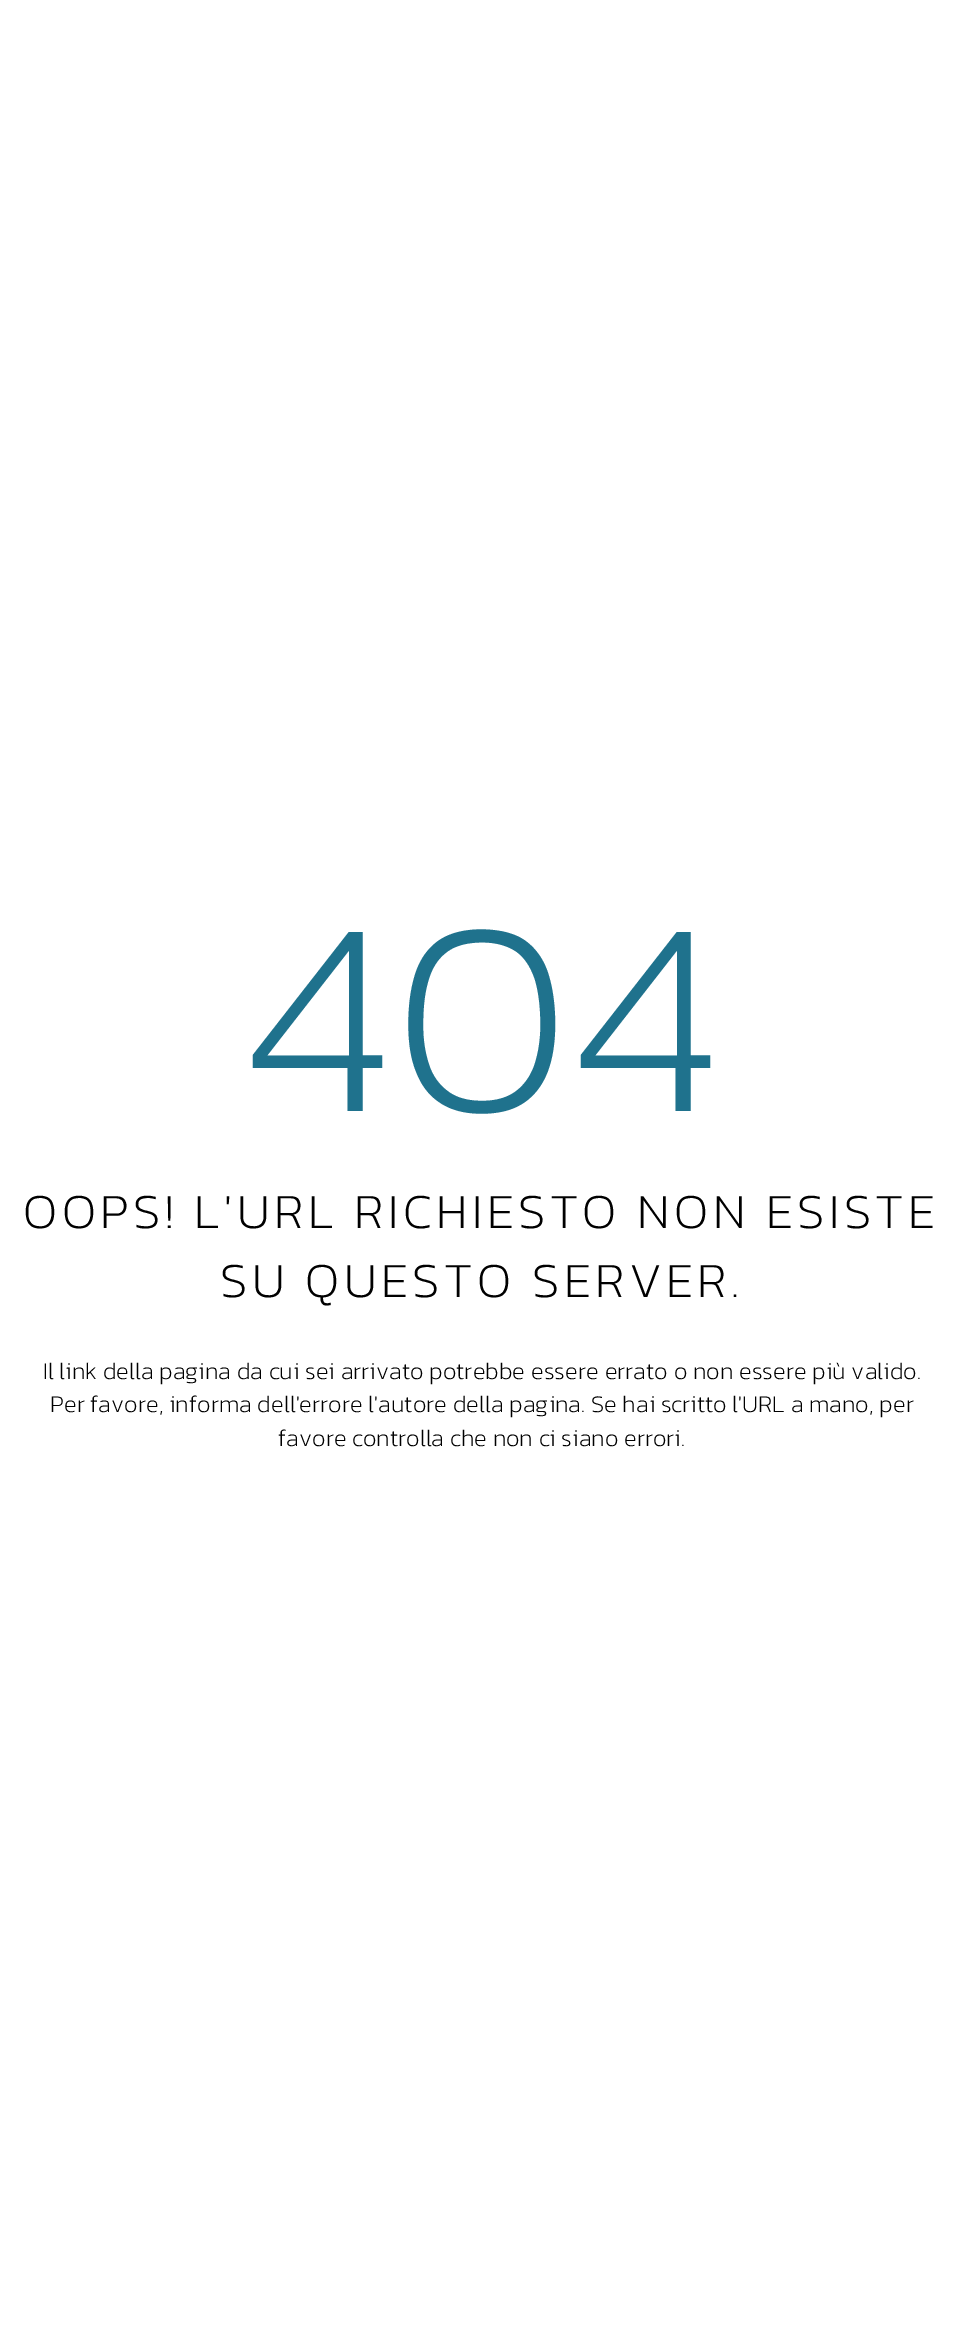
%!PS-Adobe-3.0
%%BoundingBox: 0 0 963 2338
%%LanguageLevel: 3
%%Pages: 1
%%EndComments
%%BeginProlog
/setink { 3 { 255 div 3 1 roll } repeat setrgbcolor } def
/usefont { [ exch dup neg 0 0 3 -1 roll 0 0 ] selectfont } def
/drawtext { setink usefont moveto show } def
/fillbox { setink rectfill } def
%%EndProlog
%%BeginSetup
<< /PageSize [963 2338] >> setpagedevice
%%EndSetup
%%Page: 1 1
0 2338 translate 1 -1 scale
4 setmiterlimit
0 0 963 2338 255 255 255 fillbox
(404) 243 1111 /Kanit-ExtraLight 279 31 114 141 drawtext
/Kanit-ExtraLight 49.5 usefont
0 0 0 setink
23 1228 moveto 4.5 0 (OOPS! L'URL RICHIESTO NON ESISTE) ashow
220 1297 moveto 4.5 0 (SU QUESTO SERVER.) ashow
(Il link della pagina da cui sei arrivato potrebbe essere errato o non essere più valido.) 43 1379 /Kanit-ExtraLight 24 0 0 0 drawtext
(Per favore, informa dell'errore l'autore della pagina. Se hai scritto l'URL a mano, per) 50 1412 /Kanit-ExtraLight 24 0 0 0 drawtext
(favore controlla che non ci siano errori.) 278 1446 /Kanit-ExtraLight 24 0 0 0 drawtext
showpage
%%EOF
